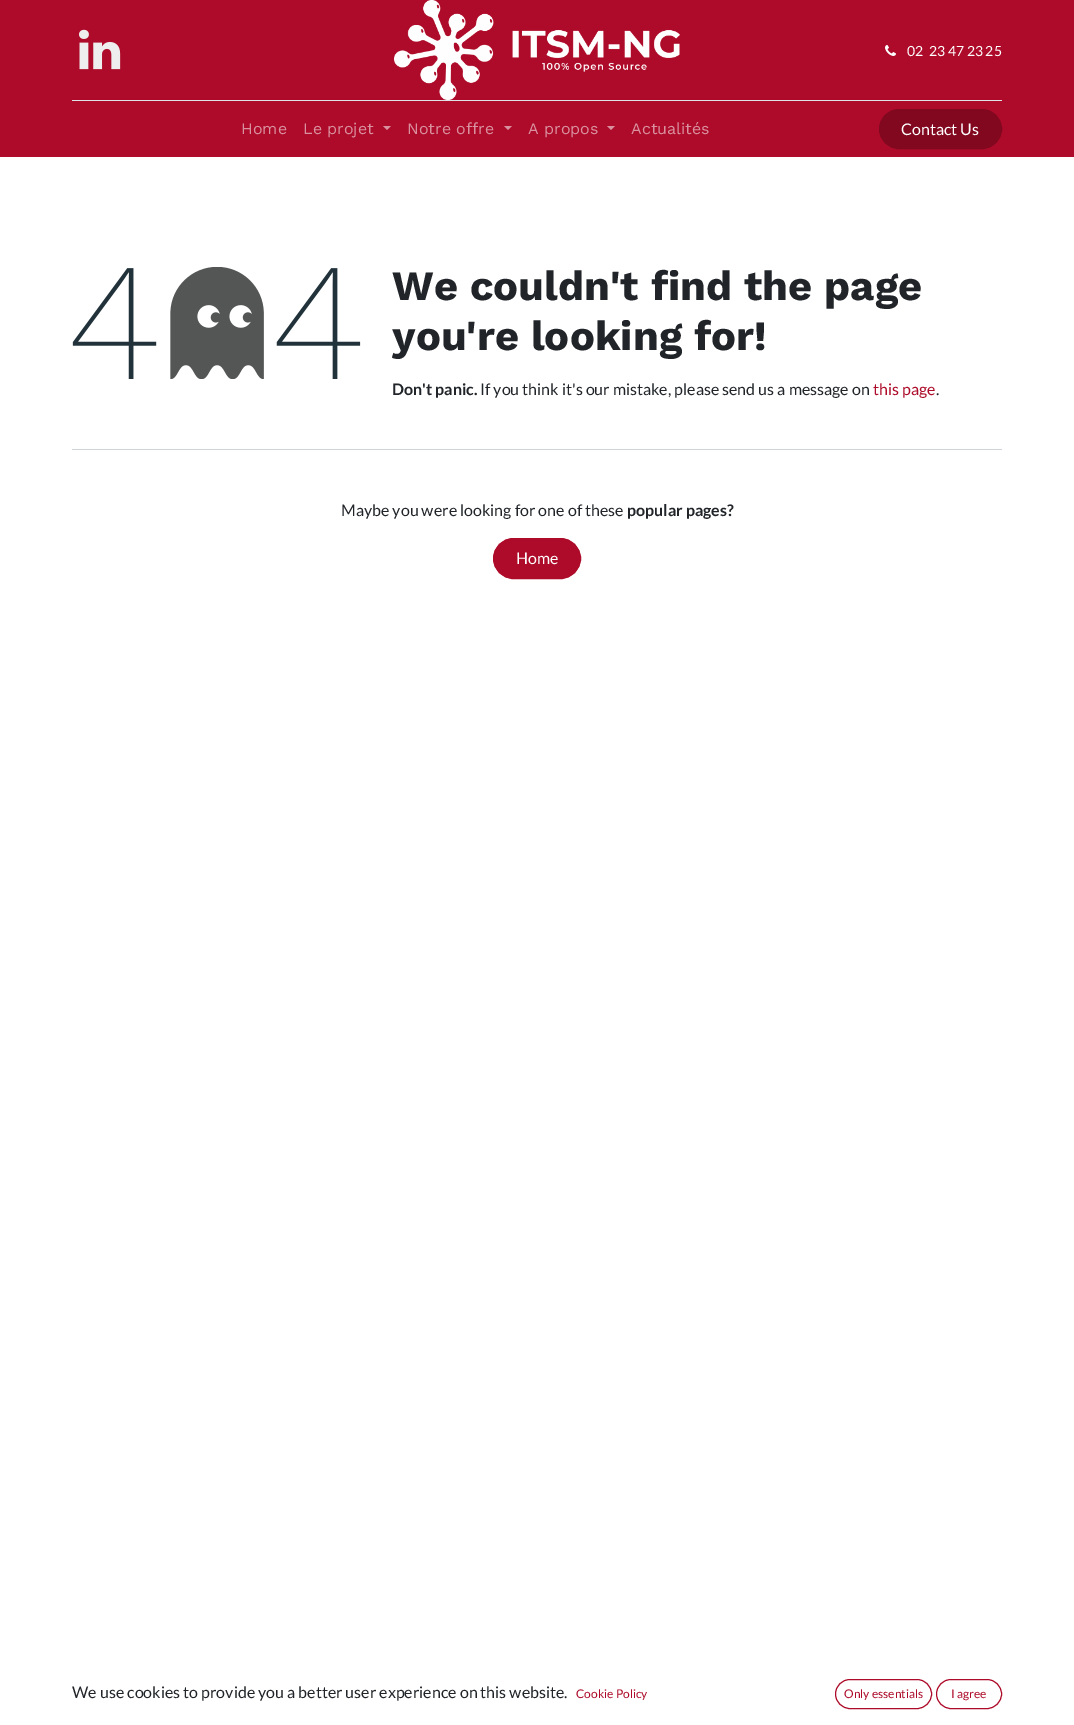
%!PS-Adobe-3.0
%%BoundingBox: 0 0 1074 1725
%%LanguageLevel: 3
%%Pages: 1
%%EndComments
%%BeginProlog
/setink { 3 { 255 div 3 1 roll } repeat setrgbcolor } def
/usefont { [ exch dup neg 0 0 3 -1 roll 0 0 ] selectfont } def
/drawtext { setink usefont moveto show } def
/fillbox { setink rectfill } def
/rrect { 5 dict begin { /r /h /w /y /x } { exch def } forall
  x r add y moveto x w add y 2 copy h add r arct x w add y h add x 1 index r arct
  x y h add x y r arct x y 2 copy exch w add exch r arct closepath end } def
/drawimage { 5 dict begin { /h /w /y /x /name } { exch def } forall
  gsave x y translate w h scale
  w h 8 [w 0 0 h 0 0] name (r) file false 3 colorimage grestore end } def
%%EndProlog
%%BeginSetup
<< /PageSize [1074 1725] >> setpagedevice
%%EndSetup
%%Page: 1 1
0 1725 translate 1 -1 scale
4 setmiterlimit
0 0 1074 1725 255 255 255 fillbox
0 0 1074 157 173 11 41 fillbox
(assets/img1.rgb) 79 29 42 41 drawimage
(assets/img2.rgb) 394 0 286 100 drawimage
(assets/img3.rgb) 885 45 11 11 drawimage
(02  23 47 23 25) 907 56 /Lato-Regular 14 255 255 255 drawtext
72 100 930 1 222 226 230 fillbox
(Home) 241 134 /WorkSans-Regular 16 218 145 159 drawtext
(Le projet) 303 134 /WorkSans-Regular 16 218 145 159 drawtext
383 126 moveto 391 126 lineto 387 130 lineto closepath fill
(Notre offre) 407 134 /WorkSans-Regular 16 218 145 159 drawtext
504 126 moveto 512 126 lineto 508 130 lineto closepath fill
(A propos) 528 134 /WorkSans-Regular 16 218 145 159 drawtext
607 126 moveto 615 126 lineto 611 130 lineto closepath fill
(Actualités) 631 134 /WorkSans-Regular 16 218 145 159 drawtext
130 8 31 setink
879.5 109.5 122 39 19.5 rrect gsave fill grestore
stroke
(Contact Us) 901 135 /Lato-Regular 16 255 255 255 drawtext
(assets/img4.rgb) 72 267 289 112 drawimage
(We couldn't find the page) 392 300 /WorkSans-Bold 41.75 33 37 41 drawtext
(you're looking for!) 392 350 /WorkSans-Bold 41.75 33 37 41 drawtext
(Don't panic.) 392 395 /Lato-Bold 16 33 37 41 drawtext
(If you think it's our mistake, please send us a message on) 480 395 /Lato-Regular 16 33 37 41 drawtext
(this page) 873 395 /Lato-Regular 16 173 11 41 drawtext
(.) 936 395 /Lato-Regular 16 33 37 41 drawtext
72 449 930 1 206 212 218 fillbox
(Maybe you were looking for one of these) 341 516 /Lato-Regular 16 33 37 41 drawtext
(popular pages?) 627 516 /Lato-Bold 16 33 37 41 drawtext
173 11 41 setink
493.5 538.5 87 40 20 rrect gsave fill grestore
stroke
(Home) 516 564 /Lato-Regular 16 255 255 255 drawtext
(We use cookies to provide you a better user experience on this website.) 72 1698 /Lato-Regular 16 33 37 41 drawtext
(Cookie Policy) 576 1698 /Lato-Regular 12 173 11 41 drawtext
835.5 1679.5 96 29 14.5 rrect stroke
(Only essentials) 844 1698 /Lato-Regular 12 173 11 41 drawtext
936.5 1679.5 65 29 14.5 rrect stroke
(I agree) 951 1698 /Lato-Regular 12 173 11 41 drawtext
showpage
%%EOF
